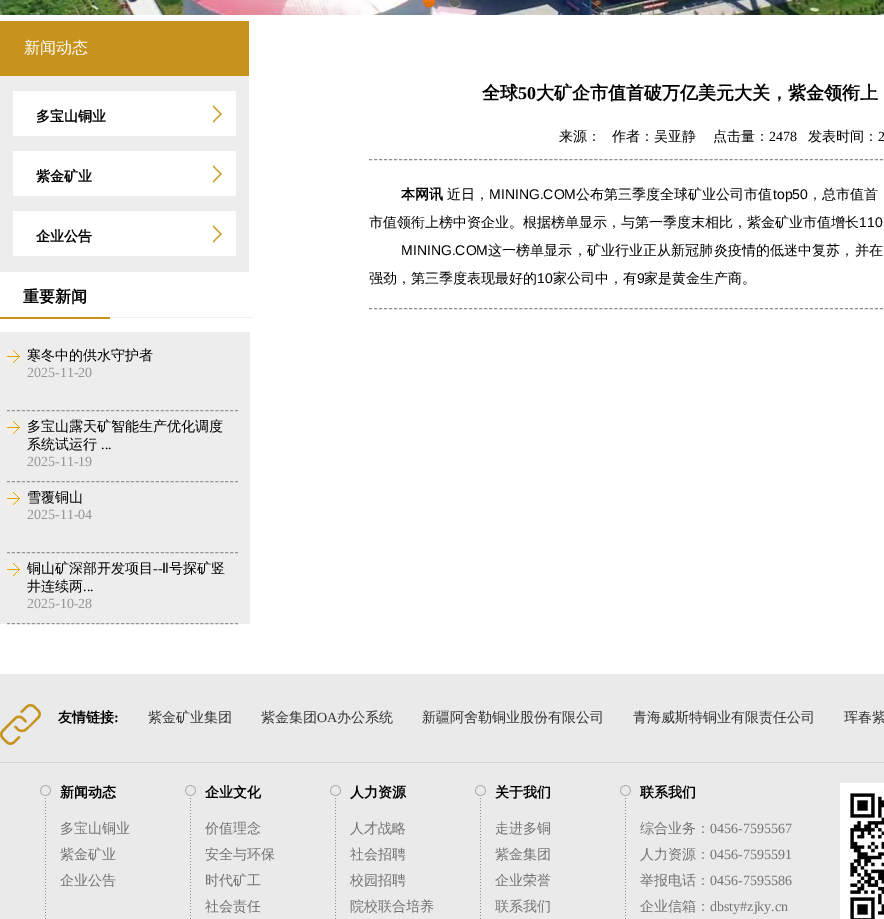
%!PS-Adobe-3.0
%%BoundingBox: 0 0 884 919
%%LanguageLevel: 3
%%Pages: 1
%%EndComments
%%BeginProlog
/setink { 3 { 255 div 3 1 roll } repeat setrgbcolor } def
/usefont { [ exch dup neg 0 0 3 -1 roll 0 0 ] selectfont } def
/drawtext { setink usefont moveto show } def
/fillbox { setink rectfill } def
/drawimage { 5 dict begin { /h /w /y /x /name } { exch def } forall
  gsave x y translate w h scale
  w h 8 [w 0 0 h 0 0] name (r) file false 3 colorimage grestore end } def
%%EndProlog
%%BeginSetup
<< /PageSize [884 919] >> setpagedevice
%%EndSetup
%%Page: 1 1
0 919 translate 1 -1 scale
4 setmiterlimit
0 0 884 919 255 255 255 fillbox
(assets/img1.rgb) 0 0 884 15 drawimage
(assets/img2.rgb) 423 0 14 8 drawimage
(assets/img3.rgb) 448 0 13 8 drawimage
0 21 249 55 199 147 29 fillbox
(新闻动态) 24 53 /WenQuanYiZenHei-Medium 16 255 255 255 drawtext
0 76 249 196 237 237 237 fillbox
13 91 223 45 255 255 255 fillbox
(assets/img4.rgb) 213 105 9 18 drawimage
(多宝山铜业) 36 121 /WenQuanYiZenHei-Bold 14 0 0 0 drawtext
13 151 223 45 255 255 255 fillbox
(assets/img4.rgb) 213 165 9 18 drawimage
(紫金矿业) 36 181 /WenQuanYiZenHei-Bold 14 0 0 0 drawtext
13 211 223 45 255 255 255 fillbox
(assets/img4.rgb) 213 225 9 18 drawimage
(企业公告) 36 241 /WenQuanYiZenHei-Bold 14 0 0 0 drawtext
110 317 143 1 238 238 238 fillbox
0 317 110 2 199 147 29 fillbox
(重要新闻) 23 302 /WenQuanYiZenHei-Bold 16 0 0 0 drawtext
0 332 250 292 237 237 237 fillbox
150 150 150 setink
[3 1.96] 0 setdash
7 410.5 moveto 238 410.5 lineto stroke
(assets/img5.rgb) 7 350 13 13 drawimage
(寒冬中的供水守护者) 27 360 /WenQuanYiZenHei-Medium 14 0 0 0 drawtext
(2025-11-20) 27 377 /LiberationSerif-Regular 14 150 150 150 drawtext
7 481.5 moveto 238 481.5 lineto stroke
(assets/img5.rgb) 7 421 13 13 drawimage
(多宝山露天矿智能生产优化调度) 27 431 /WenQuanYiZenHei-Medium 14 0 0 0 drawtext
(系统试运行) 27 449 /WenQuanYiZenHei-Medium 14 0 0 0 drawtext
(...) 101 449 /LiberationSerif-Regular 14 0 0 0 drawtext
(2025-11-19) 27 466 /LiberationSerif-Regular 14 150 150 150 drawtext
7 552.5 moveto 238 552.5 lineto stroke
(assets/img5.rgb) 7 492 13 13 drawimage
(雪覆铜山) 27 502 /WenQuanYiZenHei-Medium 14 0 0 0 drawtext
(2025-11-04) 27 519 /LiberationSerif-Regular 14 150 150 150 drawtext
7 623.5 moveto 238 623.5 lineto stroke
(assets/img5.rgb) 7 563 13 13 drawimage
(铜山矿深部开发项目) 27 573 /WenQuanYiZenHei-Medium 14 0 0 0 drawtext
(--) 153 573 /LiberationSerif-Regular 14 0 0 0 drawtext
(Ⅱ) 162 573 /DejaVuSans-Regular 14 0 0 0 drawtext
(号探矿竖) 169 573 /WenQuanYiZenHei-Medium 14 0 0 0 drawtext
(井连续两) 27 591 /WenQuanYiZenHei-Medium 14 0 0 0 drawtext
(...) 83 591 /LiberationSerif-Regular 14 0 0 0 drawtext
(2025-10-28) 27 608 /LiberationSerif-Regular 14 150 150 150 drawtext
(全球) 482 99 /WenQuanYiZenHei-Bold 18 0 0 0 drawtext
(50) 518 99 /LiberationSerif-Bold 18 0 0 0 drawtext
(大矿企市值首破万亿美元大关，紫金领衔上) 536 99 /WenQuanYiZenHei-Bold 18 0 0 0 drawtext
141 141 141 setink
[3 2.01] 0 setdash
369 159.5 moveto 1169 159.5 lineto stroke
(来源：) 559 141 /WenQuanYiZenHei-Medium 14 0 0 0 drawtext
(作者：吴亚静) 612 141 /WenQuanYiZenHei-Medium 14 0 0 0 drawtext
(点击量：) 713 141 /WenQuanYiZenHei-Medium 14 0 0 0 drawtext
(2478) 769 141 /LiberationSerif-Regular 14 0 0 0 drawtext
(发表时间：) 808 141 /WenQuanYiZenHei-Medium 14 0 0 0 drawtext
(2) 878 141 /LiberationSerif-Regular 14 0 0 0 drawtext
141 141 141 setink
369 308.5 moveto 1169 308.5 lineto stroke
(本网讯) 401 199 /WenQuanYiZenHei-Bold 14 0 0 0 drawtext
(近日，) 447 199 /WenQuanYiZenHei-Medium 14 0 0 0 drawtext
(MINING.COM) 489 199 /LiberationSans-Regular 14 0 0 0 drawtext
(公布第三季度全球矿业公司市值) 576 199 /WenQuanYiZenHei-Medium 14 0 0 0 drawtext
(top50) 773 199 /LiberationSans-Regular 14 0 0 0 drawtext
(，总市值首) 808 199 /WenQuanYiZenHei-Medium 14 0 0 0 drawtext
(市值领衔上榜中资企业。根据榜单显示，与第一季度末相比，紫金矿业市值增长) 369 227 /WenQuanYiZenHei-Medium 14 0 0 0 drawtext
(110) 859 227 /LiberationSans-Regular 14 0 0 0 drawtext
(MINING.COM) 401 255 /LiberationSans-Regular 14 0 0 0 drawtext
/WenQuanYiZenHei-Medium 14 usefont
488 255 moveto 0.1 0 (这一榜单显示，矿业行业正从新冠肺炎疫情的低迷中复苏，并在) ashow
(强劲，第三季度表现最好的) 369 283 /WenQuanYiZenHei-Medium 14 0 0 0 drawtext
(10) 537 283 /LiberationSans-Regular 14 0 0 0 drawtext
(家公司中，有) 553 283 /WenQuanYiZenHei-Medium 14 0 0 0 drawtext
(9) 637 283 /LiberationSans-Regular 14 0 0 0 drawtext
(家是黄金生产商。) 644 283 /WenQuanYiZenHei-Medium 14 0 0 0 drawtext
0 674 884 245 234 234 234 fillbox
0 762 884 1 209 209 209 fillbox
(assets/img6.rgb) 0 704 41 41 drawimage
(友情链接) 58 722 /WenQuanYiZenHei-Bold 14 0 0 0 drawtext
(:) 114 722 /LiberationSerif-Bold 14 0 0 0 drawtext
(紫金矿业集团) 148 722 /WenQuanYiZenHei-Medium 14 51 51 51 drawtext
(紫金集团) 261 722 /WenQuanYiZenHei-Medium 14 51 51 51 drawtext
(OA) 317 722 /LiberationSerif-Regular 14 51 51 51 drawtext
(办公系统) 337 722 /WenQuanYiZenHei-Medium 14 51 51 51 drawtext
(新疆阿舍勒铜业股份有限公司) 422 722 /WenQuanYiZenHei-Medium 14 51 51 51 drawtext
(青海威斯特铜业有限责任公司) 633 722 /WenQuanYiZenHei-Medium 14 51 51 51 drawtext
(珲春紫) 844 722 /WenQuanYiZenHei-Medium 14 51 51 51 drawtext
(assets/img7.rgb) 40 785 11 134 drawimage
(新闻动态) 60 797 /WenQuanYiZenHei-Bold 14 0 0 0 drawtext
(多宝山铜业) 60 833 /WenQuanYiZenHei-Medium 14 115 115 115 drawtext
(紫金矿业) 60 859 /WenQuanYiZenHei-Medium 14 115 115 115 drawtext
(企业公告) 60 885 /WenQuanYiZenHei-Medium 14 115 115 115 drawtext
(assets/img7.rgb) 185 785 11 134 drawimage
(企业文化) 205 797 /WenQuanYiZenHei-Bold 14 0 0 0 drawtext
(价值理念) 205 833 /WenQuanYiZenHei-Medium 14 115 115 115 drawtext
(安全与环保) 205 859 /WenQuanYiZenHei-Medium 14 115 115 115 drawtext
(时代矿工) 205 885 /WenQuanYiZenHei-Medium 14 115 115 115 drawtext
(社会责任) 205 911 /WenQuanYiZenHei-Medium 14 115 115 115 drawtext
(assets/img7.rgb) 330 785 11 134 drawimage
(人力资源) 350 797 /WenQuanYiZenHei-Bold 14 0 0 0 drawtext
(人才战略) 350 833 /WenQuanYiZenHei-Medium 14 115 115 115 drawtext
(社会招聘) 350 859 /WenQuanYiZenHei-Medium 14 115 115 115 drawtext
(校园招聘) 350 885 /WenQuanYiZenHei-Medium 14 115 115 115 drawtext
(院校联合培养) 350 911 /WenQuanYiZenHei-Medium 14 115 115 115 drawtext
(assets/img7.rgb) 475 785 11 134 drawimage
(关于我们) 495 797 /WenQuanYiZenHei-Bold 14 0 0 0 drawtext
(走进多铜) 495 833 /WenQuanYiZenHei-Medium 14 115 115 115 drawtext
(紫金集团) 495 859 /WenQuanYiZenHei-Medium 14 115 115 115 drawtext
(企业荣誉) 495 885 /WenQuanYiZenHei-Medium 14 115 115 115 drawtext
(联系我们) 495 911 /WenQuanYiZenHei-Medium 14 115 115 115 drawtext
(assets/img7.rgb) 620 785 11 134 drawimage
(联系我们) 640 797 /WenQuanYiZenHei-Bold 14 0 0 0 drawtext
(综合业务：) 640 833 /WenQuanYiZenHei-Medium 14 115 115 115 drawtext
(0456-7595567) 710 833 /LiberationSerif-Regular 14 115 115 115 drawtext
(人力资源：) 640 859 /WenQuanYiZenHei-Medium 14 115 115 115 drawtext
(0456-7595591) 710 859 /LiberationSerif-Regular 14 115 115 115 drawtext
(举报电话：) 640 885 /WenQuanYiZenHei-Medium 14 115 115 115 drawtext
(0456-7595586) 710 885 /LiberationSerif-Regular 14 115 115 115 drawtext
(企业信箱：) 640 911 /WenQuanYiZenHei-Medium 14 115 115 115 drawtext
(dbsty#zjky.cn) 710 911 /LiberationSerif-Regular 14 115 115 115 drawtext
(assets/img8.rgb) 840 783 44 136 drawimage
showpage
%%EOF
